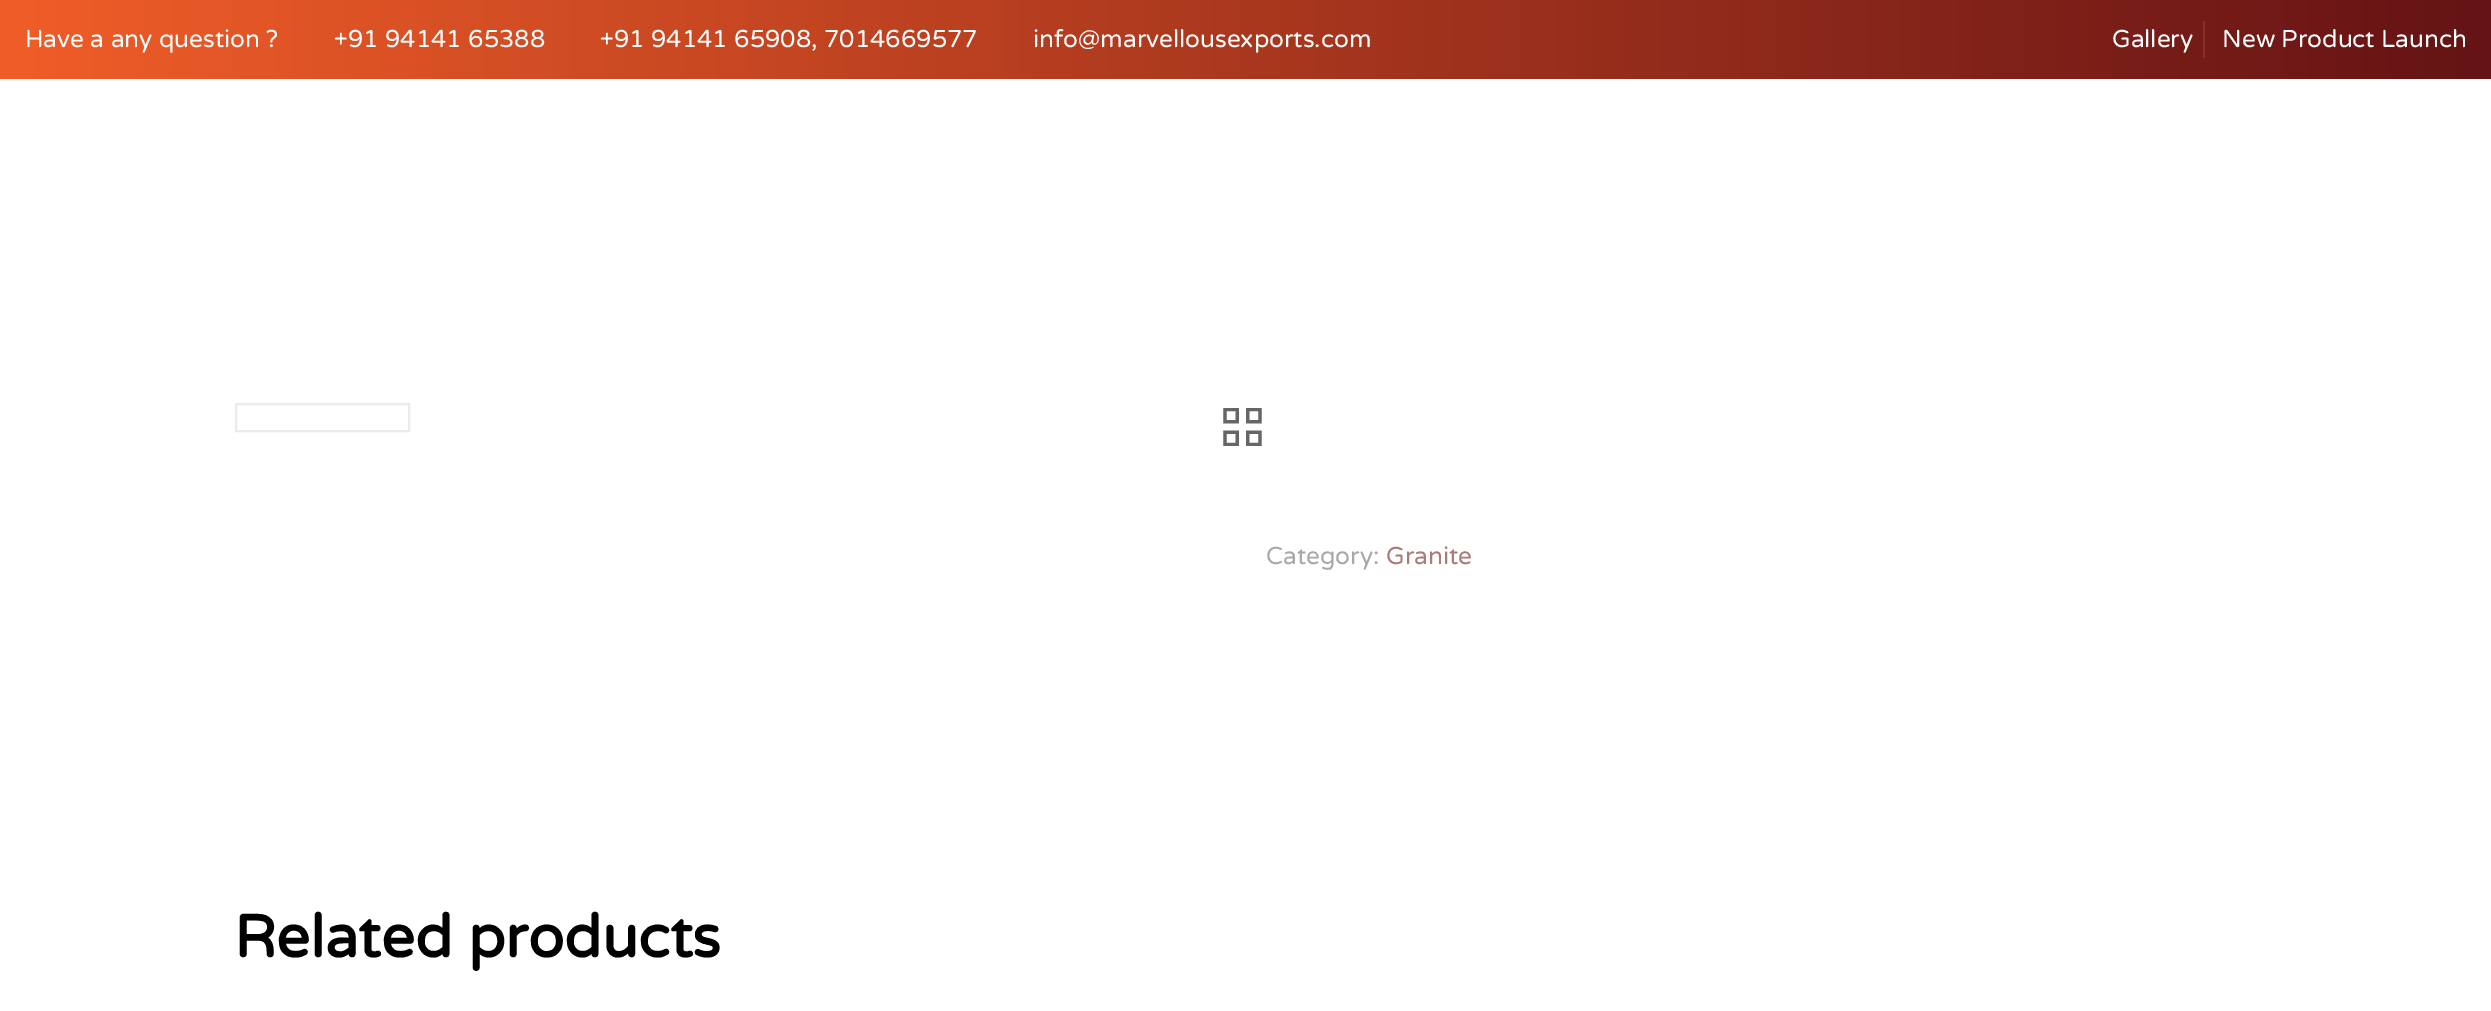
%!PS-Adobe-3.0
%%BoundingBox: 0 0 2491 1011
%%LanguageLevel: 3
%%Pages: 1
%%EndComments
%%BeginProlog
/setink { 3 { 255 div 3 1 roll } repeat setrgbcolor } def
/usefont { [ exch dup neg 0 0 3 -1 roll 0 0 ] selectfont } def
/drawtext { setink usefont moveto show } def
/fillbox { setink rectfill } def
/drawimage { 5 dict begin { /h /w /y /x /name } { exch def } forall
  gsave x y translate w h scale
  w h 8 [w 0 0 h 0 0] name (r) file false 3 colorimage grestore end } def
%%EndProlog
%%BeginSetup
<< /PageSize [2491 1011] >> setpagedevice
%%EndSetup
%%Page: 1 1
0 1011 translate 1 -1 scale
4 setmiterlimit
0 0 2491 1011 255 255 255 fillbox
gsave 0 0 moveto 2491 0 lineto 2491 79 lineto 0 79 lineto closepath clip newpath
<< /ShadingType 2 /ColorSpace /DeviceRGB /Coords [0 39 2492 39] /Extend [true true] /Function << /FunctionType 2 /Domain [0 1] /C0 [0.941 0.365 0.157] /C1 [0.396 0.075 0.082] /N 1 >> >> shfill grestore
(Have a any question ?) 25 47 /VarelaRound-Regular 24.5 255 255 255 drawtext
(+91 94141 65388) 334 47 /VarelaRound-Regular 24.5 255 255 255 drawtext
(+91 94141 65908, 7014669577) 600 47 /VarelaRound-Regular 24.5 255 255 255 drawtext
(info@marvellousexports.com) 1033 47 /VarelaRound-Regular 24.5 255 255 255 drawtext
2203 21 2 37 131 51 46 fillbox
(Gallery) 2112 47 /VarelaRound-Regular 24.5 255 255 255 drawtext
(New Product Launch) 2222 47 /VarelaRound-Regular 24.5 255 255 255 drawtext
(assets/img1.rgb) 1223 408 39 38 drawimage
235 235 235 setink
2 setlinewidth
236 404 173 27 rectstroke
(Category:) 1266 564 /VarelaRound-Regular 24.5 168 168 168 drawtext
(Granite) 1386 564 /VarelaRound-Regular 24.5 168 124 121 drawtext
(Related products) 234 957 /VarelaRound-Bold 59.5 0 0 0 drawtext
showpage
%%EOF
